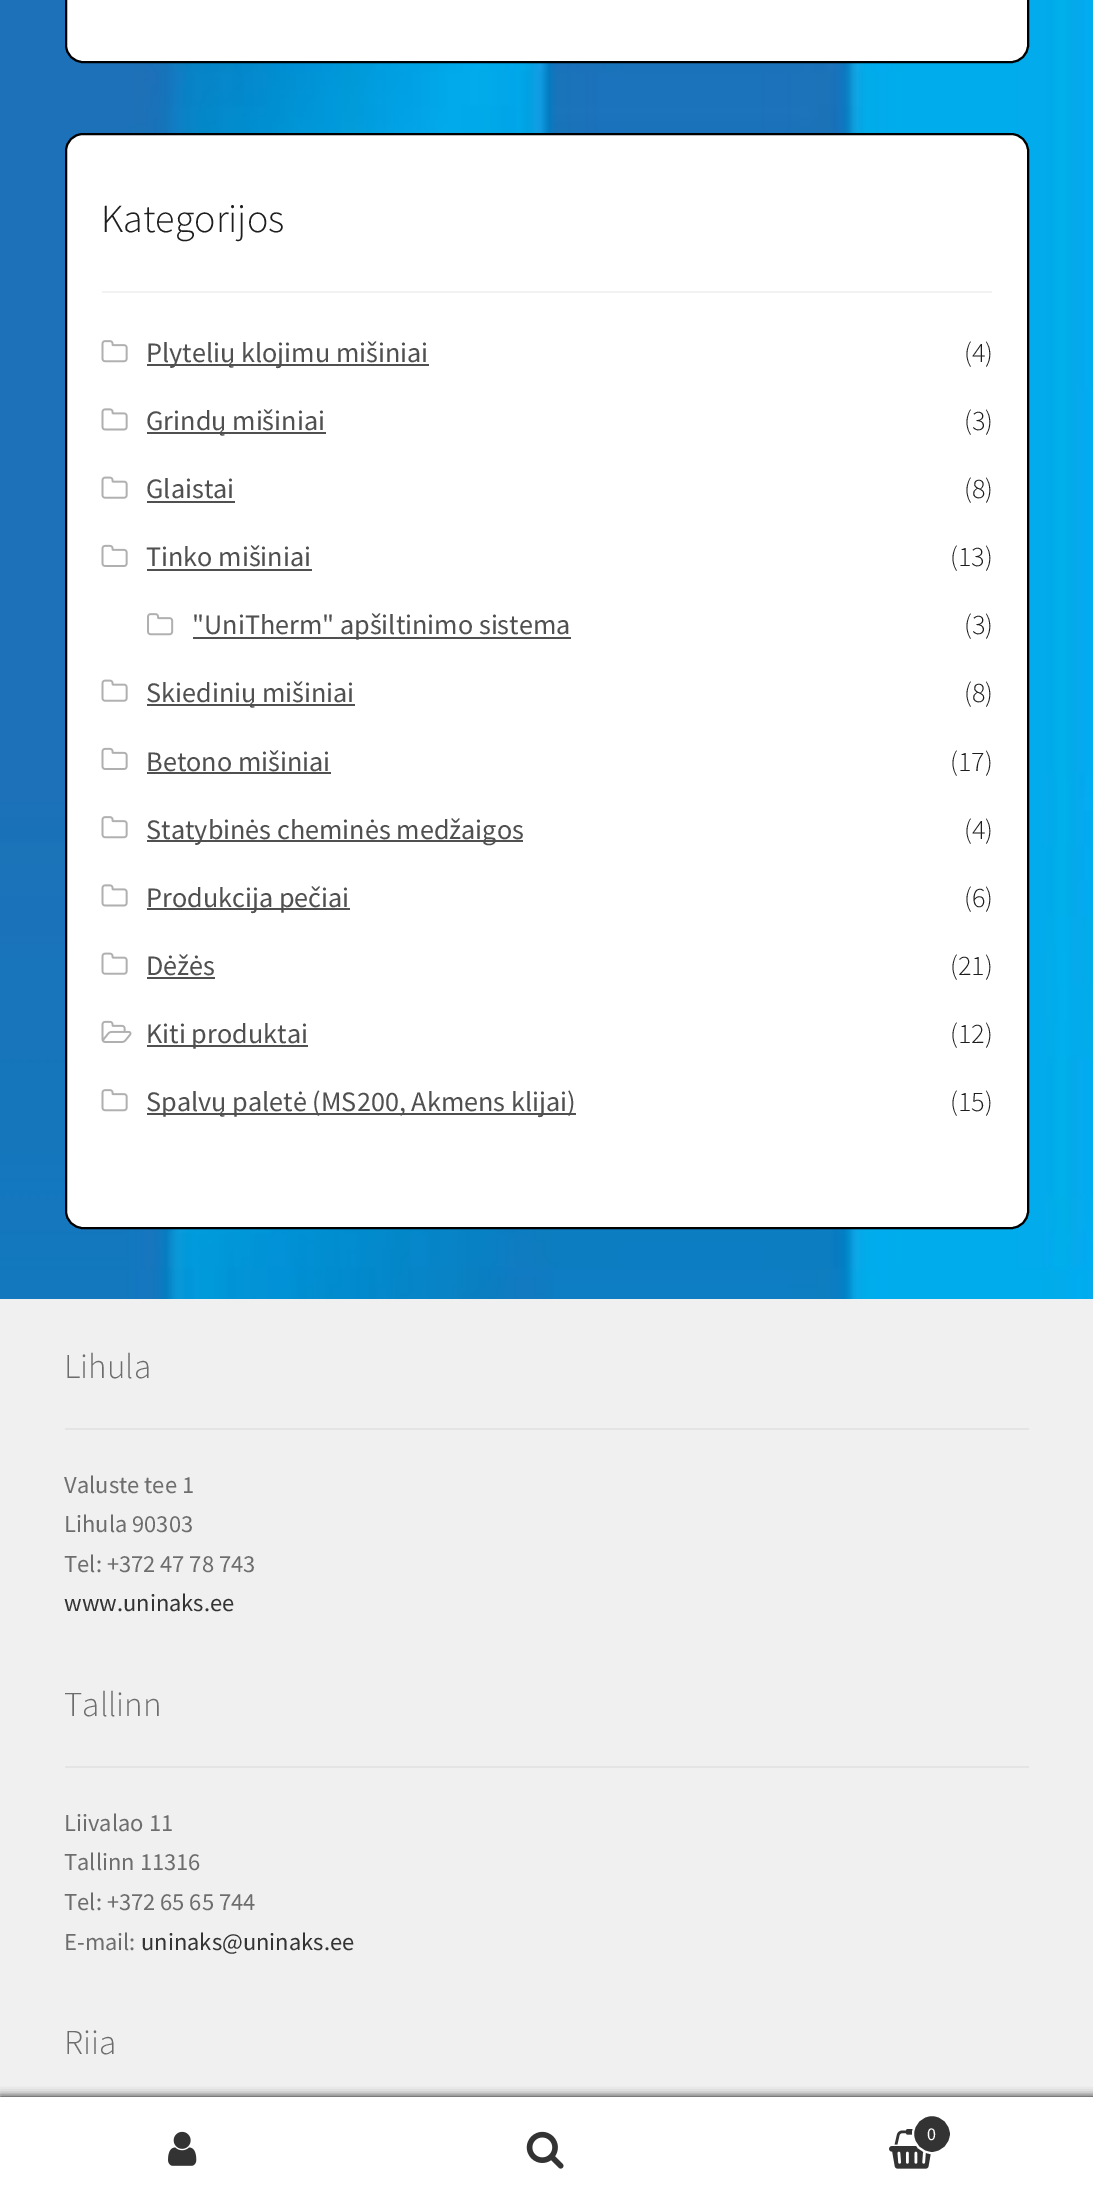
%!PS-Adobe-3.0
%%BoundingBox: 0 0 1093 2201
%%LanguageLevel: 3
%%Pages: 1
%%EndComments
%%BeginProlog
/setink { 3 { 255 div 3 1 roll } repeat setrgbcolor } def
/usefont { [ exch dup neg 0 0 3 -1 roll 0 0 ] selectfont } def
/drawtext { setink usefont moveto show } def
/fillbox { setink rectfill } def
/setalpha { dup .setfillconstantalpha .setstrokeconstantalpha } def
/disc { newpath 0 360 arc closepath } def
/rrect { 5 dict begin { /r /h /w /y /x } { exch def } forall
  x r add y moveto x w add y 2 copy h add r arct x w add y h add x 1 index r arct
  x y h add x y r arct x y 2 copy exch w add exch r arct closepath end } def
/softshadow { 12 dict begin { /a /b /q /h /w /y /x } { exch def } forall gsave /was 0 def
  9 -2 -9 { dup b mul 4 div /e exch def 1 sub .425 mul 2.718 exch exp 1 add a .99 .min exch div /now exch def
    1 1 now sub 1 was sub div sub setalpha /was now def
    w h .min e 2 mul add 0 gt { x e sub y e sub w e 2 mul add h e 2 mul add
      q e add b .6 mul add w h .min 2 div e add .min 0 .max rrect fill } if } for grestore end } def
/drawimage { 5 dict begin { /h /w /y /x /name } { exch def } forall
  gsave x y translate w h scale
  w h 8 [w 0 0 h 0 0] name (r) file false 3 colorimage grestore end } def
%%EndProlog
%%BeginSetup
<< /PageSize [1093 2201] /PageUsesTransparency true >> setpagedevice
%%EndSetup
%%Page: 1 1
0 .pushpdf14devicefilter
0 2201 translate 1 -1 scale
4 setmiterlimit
0 0 1093 2201 255 255 255 fillbox
(assets/img1.rgb) 0 0 1093 1299 drawimage
66 -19 962 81 17 rrect gsave fill grestore
0 0 0 setink
2 setlinewidth
stroke
255 255 255 setink
66 134 962 1094 17 rrect gsave fill grestore
0 0 0 setink
stroke
102 291 890 2 242 242 242 fillbox
(Kategorijos) 101 232 /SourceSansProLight-Light 40 30 30 30 drawtext
(assets/img2.rgb) 101 340 27 23 drawimage
147 364 282 2 80 80 80 fillbox
(Plytelių klojimu mišiniai) 146 362 /SourceSansPro-Regular 28.2 80 80 80 drawtext
(\(4\)) 964 362 /SourceSansProLight-Light 28.2 30 30 30 drawtext
(assets/img3.rgb) 101 408 27 23 drawimage
147 432 179 2 80 80 80 fillbox
(Grindų mišiniai) 146 430 /SourceSansPro-Regular 28.2 80 80 80 drawtext
(\(3\)) 964 430 /SourceSansProLight-Light 28.2 30 30 30 drawtext
(assets/img4.rgb) 101 476 27 23 drawimage
(Glaistai) 146 498 /SourceSansPro-Regular 28.2 80 80 80 drawtext
147 501 88 2 80 80 80 fillbox
(\(8\)) 964 498 /SourceSansProLight-Light 28.2 30 30 30 drawtext
(assets/img5.rgb) 101 544 27 23 drawimage
(Tinko mišiniai) 146 566 /SourceSansPro-Regular 28.2 80 80 80 drawtext
147 569 165 2 80 80 80 fillbox
(\(13\)) 950 566 /SourceSansProLight-Light 28.2 30 30 30 drawtext
(assets/img6.rgb) 147 613 27 23 drawimage
193 637 378 2 80 80 80 fillbox
("UniTherm" apšiltinimo sistema) 192 634 /SourceSansPro-Regular 28.2 80 80 80 drawtext
(\(3\)) 964 634 /SourceSansProLight-Light 28.2 30 30 30 drawtext
(assets/img4.rgb) 101 679 27 23 drawimage
147 704 208 2 80 80 80 fillbox
(Skiedinių mišiniai) 146 702 /SourceSansPro-Regular 28.2 80 80 80 drawtext
(\(8\)) 964 702 /SourceSansProLight-Light 28.2 30 30 30 drawtext
(assets/img5.rgb) 101 747 27 23 drawimage
(Betono mišiniai) 146 771 /SourceSansPro-Regular 28.2 80 80 80 drawtext
147 772 184 2 80 80 80 fillbox
(\(17\)) 950 771 /SourceSansProLight-Light 28.2 30 30 30 drawtext
(assets/img2.rgb) 101 816 27 23 drawimage
147 840 376 2 80 80 80 fillbox
(Statybinės cheminės medžaigos) 146 839 /SourceSansPro-Regular 28.2 80 80 80 drawtext
(\(4\)) 964 839 /SourceSansProLight-Light 28.2 30 30 30 drawtext
(assets/img3.rgb) 101 884 27 23 drawimage
147 908 203 2 80 80 80 fillbox
(Produkcija pečiai) 146 907 /SourceSansPro-Regular 28.2 80 80 80 drawtext
(\(6\)) 964 907 /SourceSansProLight-Light 28.2 30 30 30 drawtext
(assets/img4.rgb) 101 952 27 23 drawimage
(Dėžės) 146 975 /SourceSansPro-Regular 28.2 80 80 80 drawtext
147 977 68 2 80 80 80 fillbox
(\(21\)) 950 975 /SourceSansProLight-Light 28.2 30 30 30 drawtext
(assets/img7.rgb) 101 1020 31 23 drawimage
147 1045 161 2 80 80 80 fillbox
(Kiti produktai) 146 1043 /SourceSansPro-Regular 28.2 80 80 80 drawtext
(\(12\)) 950 1043 /SourceSansProLight-Light 28.2 30 30 30 drawtext
(assets/img2.rgb) 101 1089 27 23 drawimage
147 1113 429 2 80 80 80 fillbox
(Spalvų paletė \(MS200, Akmens klijai\)) 146 1111 /SourceSansPro-Regular 28.2 80 80 80 drawtext
(\(15\)) 950 1111 /SourceSansProLight-Light 28.2 30 30 30 drawtext
0 1299 1093 798 240 240 240 fillbox
65 1428 964 2 228 228 228 fillbox
(Lihula) 64 1378 /SourceSansProLight-Light 35 109 109 109 drawtext
(Valuste tee 1) 64 1493 /SourceSansPro-Regular 24.5 109 109 109 drawtext
(Lihula 90303) 64 1532 /SourceSansPro-Regular 24.5 109 109 109 drawtext
(Tel: +372 47 78 743) 64 1572 /SourceSansPro-Regular 24.5 109 109 109 drawtext
(www.uninaks.ee) 64 1611 /SourceSansPro-Regular 24.5 51 51 51 drawtext
65 1766 964 2 228 228 228 fillbox
(Tallinn) 64 1716 /SourceSansProLight-Light 35 109 109 109 drawtext
(Liivalao 11) 64 1831 /SourceSansPro-Regular 24.5 109 109 109 drawtext
(Tallinn 11316) 64 1870 /SourceSansPro-Regular 24.5 109 109 109 drawtext
(Tel: +372 65 65 744) 64 1910 /SourceSansPro-Regular 24.5 109 109 109 drawtext
(E-mail:) 64 1950 /SourceSansPro-Regular 24.5 109 109 109 drawtext
(uninaks@uninaks.ee) 141 1950 /SourceSansPro-Regular 24.5 51 51 51 drawtext
(Riia) 64 2054 /SourceSansProLight-Light 35 109 109 109 drawtext
0 0 0 setink
0 2097 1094 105 0 4.5 1 softshadow
0 2097 1093 1 255 255 255 fillbox
0 2098 1093 103 255 255 255 fillbox
(assets/img8.rgb) 168 2131 29 35 drawimage
(assets/img9.rgb) 526 2131 38 38 drawimage
(assets/img10.rgb) 889 2129 42 40 drawimage
51 51 51 setink
932 2134 19 disc gsave fill grestore
255 255 255 setink
stroke
(0) 927 2140 /SourceSansPro-Regular 18 255 255 255 drawtext
.poppdf14devicefilter showpage
%%EOF
